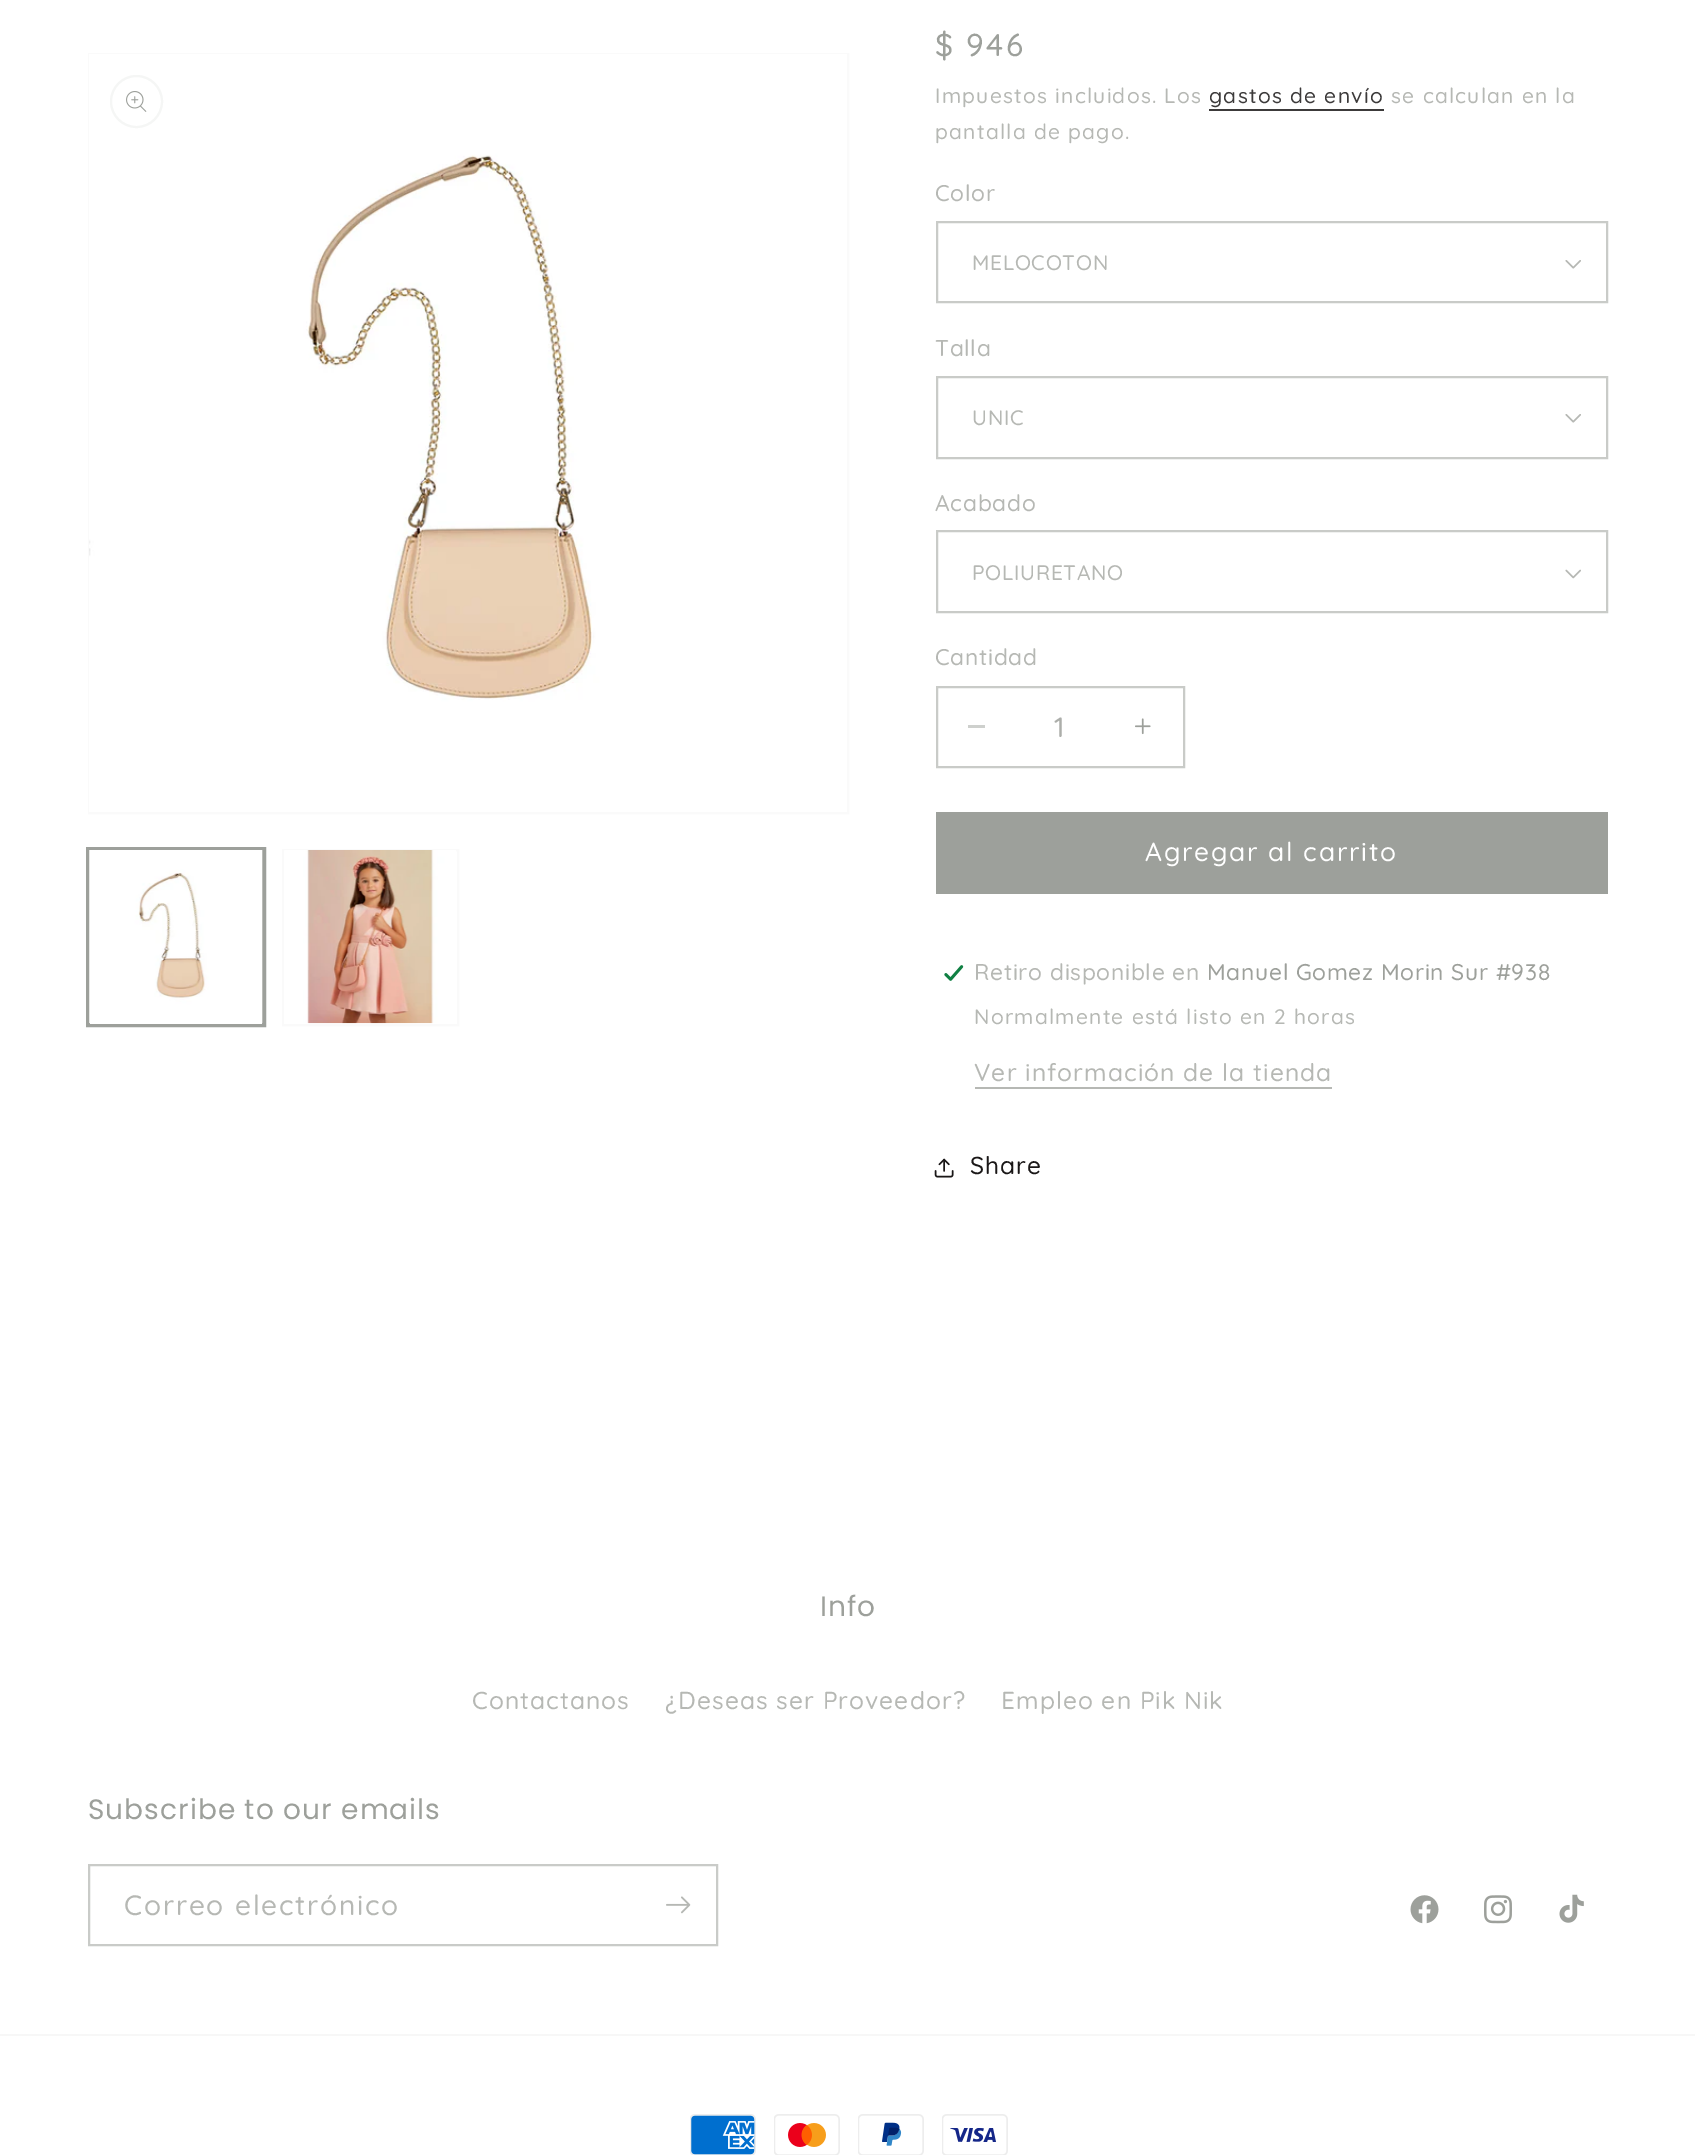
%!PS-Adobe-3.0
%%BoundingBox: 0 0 1695 2155
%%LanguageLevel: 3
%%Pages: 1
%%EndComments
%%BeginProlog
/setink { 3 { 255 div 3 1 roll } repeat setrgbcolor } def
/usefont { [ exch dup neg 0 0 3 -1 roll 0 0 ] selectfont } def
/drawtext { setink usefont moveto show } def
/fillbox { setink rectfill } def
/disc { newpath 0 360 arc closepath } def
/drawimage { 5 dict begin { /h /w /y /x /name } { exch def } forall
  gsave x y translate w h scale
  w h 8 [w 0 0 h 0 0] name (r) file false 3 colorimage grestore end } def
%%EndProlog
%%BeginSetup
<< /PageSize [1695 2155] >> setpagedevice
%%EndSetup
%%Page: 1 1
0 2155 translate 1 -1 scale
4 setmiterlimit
0 0 1695 2155 255 255 255 fillbox
250 250 250 setink
2 setlinewidth
89 54 759 759 rectstroke
(assets/img1.rgb) 89 54 758 758 drawimage
245 246 245 setink
136.5 101.5 25.5 disc stroke
(assets/img2.rgb) 126 91 21 21 drawimage
157 160 155 setink
87 848 178 178 rectstroke
89 850 174 175 rectstroke
(assets/img3.rgb) 89 850 174 174 drawimage
250 250 250 setink
283 850 175 175 rectstroke
(assets/img4.rgb) 284 850 172 174 drawimage
/Quicksand-Medium 31.5 usefont
157 160 155 setink
935 56 moveto 2.25 0 ($ 946) ashow
/Quicksand-Medium 21 usefont
182 184 180 setink
935 103 moveto 1.25 0 (Impuestos incluidos. Los) ashow
60 58 58 setink
1209 103 moveto 1.25 0 (gastos de envío) ashow
1209 109 175 2 60 58 58 fillbox
182 184 180 setink
1391 103 moveto 1.25 0 (se calculan en la) ashow
935 139 moveto 1.25 0 (pantalla de pago.) ashow
/Quicksand-Medium 22.75 usefont
935 201 moveto 0.7 0 (Color) ashow
(assets/img5.rgb) 1565 260 16 9 drawimage
201 203 200 setink
937 222 670 80 rectstroke
/Quicksand-Medium 21 usefont
182 184 180 setink
972 270 moveto 0.7 0 (MELOCOTON) ashow
/Quicksand-Medium 22.75 usefont
935 356 moveto 0.7 0 (Talla) ashow
(assets/img5.rgb) 1565 414 16 9 drawimage
201 203 200 setink
937 377 670 81 rectstroke
/Quicksand-Medium 21 usefont
182 184 180 setink
972 425 moveto 0.7 0 (UNIC) ashow
/Quicksand-Medium 22.75 usefont
935 511 moveto 0.7 0 (Acabado) ashow
(assets/img6.rgb) 1565 569 16 10 drawimage
201 203 200 setink
937 531 670 81 rectstroke
/Quicksand-Medium 21 usefont
182 184 180 setink
972 580 moveto 0.7 0 (POLIURETANO) ashow
/Quicksand-Medium 22.75 usefont
935 665 moveto 0.7 0 (Cantidad) ashow
968 725 17 3 206 208 205 fillbox
(assets/img7.rgb) 1135 718 16 17 drawimage
201 203 200 setink
937 687 247 80 rectstroke
(1) 1054 737 /Quicksand-Medium 28 172 174 170 drawtext
936 812 672 82 157 160 155 fillbox
/Quicksand-Medium 26.25 usefont
255 255 255 setink
1145 861 moveto 1.75 0 (Agregar al carrito) ashow
(assets/img8.rgb) 944 965 20 16 drawimage
/Quicksand-Medium 22.75 usefont
182 184 180 setink
974 980 moveto 0.7 0 (Retiro disponible en) ashow
157 160 155 setink
1207 980 moveto 0.7 0 (Manuel Gomez Morin Sur #938) ashow
/Quicksand-Medium 21 usefont
182 184 180 setink
974 1024 moveto 1.25 0 (Normalmente está listo en 2 horas) ashow
/Quicksand-Medium 24.5 usefont
974 1081 moveto 1.05 0 (Ver información de la tienda) ashow
975 1087 357 2 182 184 180 fillbox
(assets/img9.rgb) 934 1158 20 20 drawimage
26 23 23 setink
970 1174 moveto 1.05 0 (Share) ashow
/Poppins-Regular 28 usefont
157 160 155 setink
820 1616 moveto 1.05 0 (Info) ashow
/Quicksand-Medium 24.5 usefont
182 184 180 setink
472 1709 moveto 1.05 0 (Contactanos) ashow
665 1709 moveto 1.05 0 (¿Deseas ser Proveedor?) ashow
1001 1709 moveto 1.05 0 (Empleo en Pik Nik) ashow
/Poppins-Regular 28 usefont
157 160 155 setink
88 1819 moveto 1.05 0 (Subscribe to our emails) ashow
201 203 200 setink
89 1865 628 80 rectstroke
/Quicksand-Medium 28 usefont
182 184 180 setink
124 1915 moveto 1.75 0 (Correo electrónico) ashow
(assets/img10.rgb) 666 1896 25 18 drawimage
(assets/img11.rgb) 1410 1895 29 29 drawimage
(assets/img12.rgb) 1484 1895 28 29 drawimage
(assets/img13.rgb) 1559 1894 25 29 drawimage
0 2034 1695 2 247 247 247 fillbox
(assets/img14.rgb) 690 2114 66 41 drawimage
(assets/img15.rgb) 774 2114 66 41 drawimage
(assets/img16.rgb) 858 2114 66 41 drawimage
(assets/img17.rgb) 942 2114 66 41 drawimage
showpage
%%EOF
